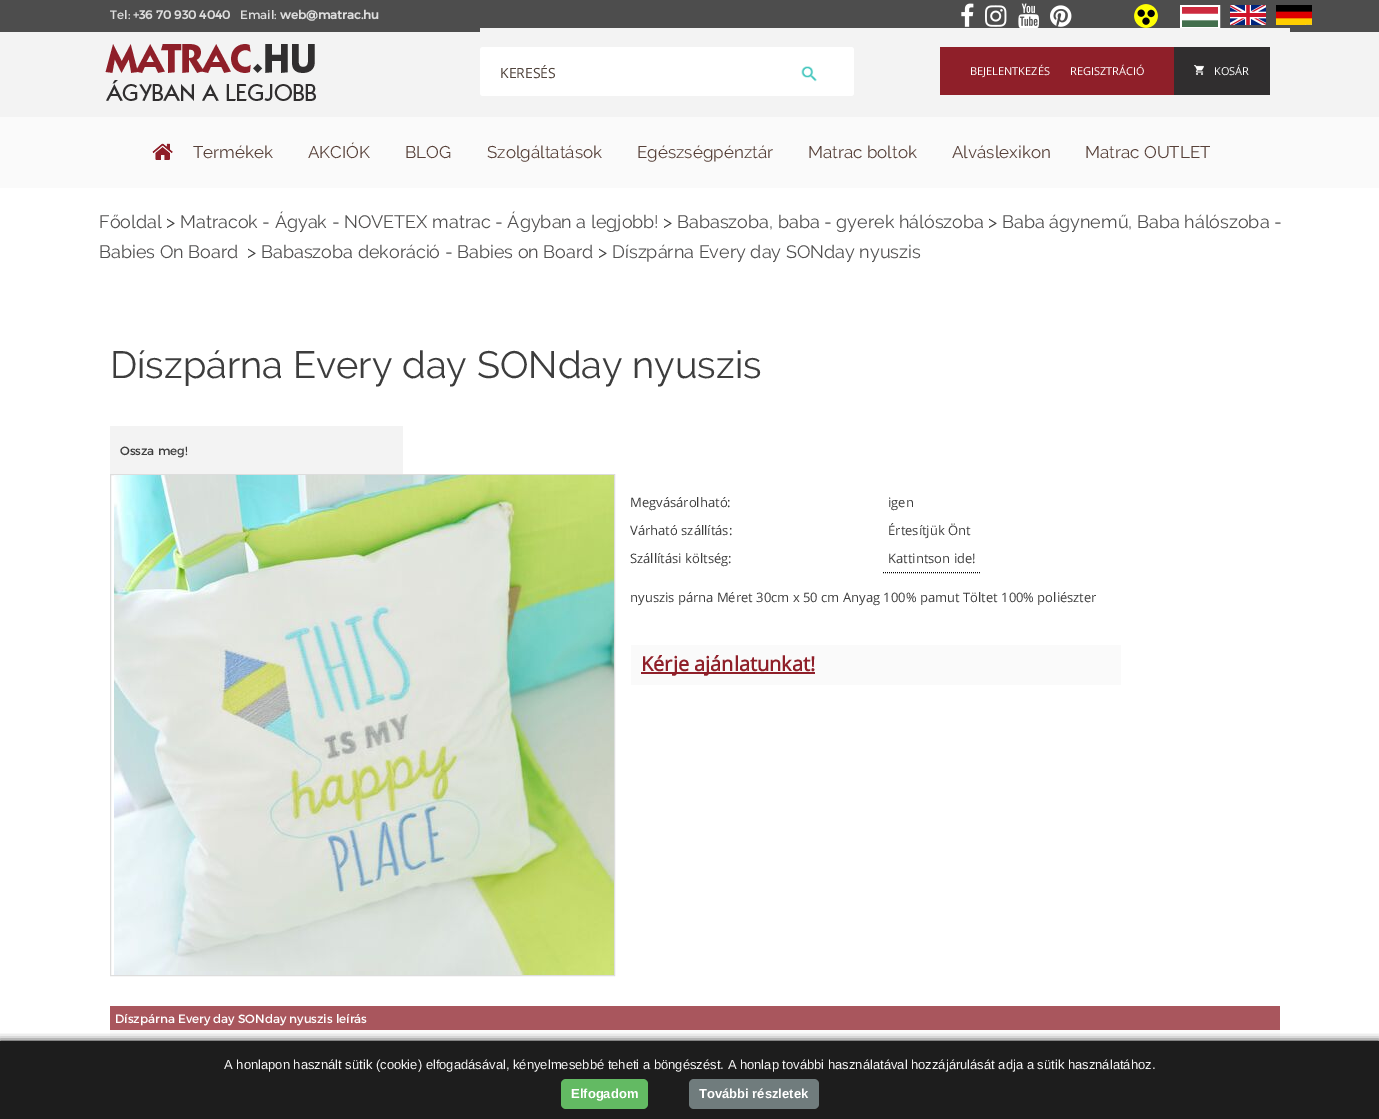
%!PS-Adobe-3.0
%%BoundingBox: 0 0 1379 1119
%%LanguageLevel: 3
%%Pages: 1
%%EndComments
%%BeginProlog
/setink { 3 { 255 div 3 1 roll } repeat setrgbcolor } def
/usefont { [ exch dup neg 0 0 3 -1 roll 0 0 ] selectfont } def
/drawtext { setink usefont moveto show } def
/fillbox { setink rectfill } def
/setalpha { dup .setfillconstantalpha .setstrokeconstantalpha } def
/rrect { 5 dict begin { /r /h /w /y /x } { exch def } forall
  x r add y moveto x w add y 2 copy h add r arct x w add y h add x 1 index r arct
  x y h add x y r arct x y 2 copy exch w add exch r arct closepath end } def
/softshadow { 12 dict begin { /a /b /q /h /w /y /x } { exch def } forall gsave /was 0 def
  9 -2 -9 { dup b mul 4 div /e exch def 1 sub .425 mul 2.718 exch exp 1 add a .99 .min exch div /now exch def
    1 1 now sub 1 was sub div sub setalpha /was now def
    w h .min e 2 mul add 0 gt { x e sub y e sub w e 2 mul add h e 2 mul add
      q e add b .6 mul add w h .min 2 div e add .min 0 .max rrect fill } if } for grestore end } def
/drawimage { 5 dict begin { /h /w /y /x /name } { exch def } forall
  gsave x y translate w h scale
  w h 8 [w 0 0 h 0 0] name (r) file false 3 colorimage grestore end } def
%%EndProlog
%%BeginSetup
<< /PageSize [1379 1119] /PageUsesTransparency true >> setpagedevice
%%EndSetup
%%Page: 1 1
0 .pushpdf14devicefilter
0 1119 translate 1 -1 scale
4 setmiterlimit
0 0 1379 1119 255 255 255 fillbox
0 1041 1379 78 29 29 29 fillbox
0 0 1379 32 77 77 77 fillbox
(Tel:) 110 19 /Montserrat-Regular 12 221 221 221 drawtext
(+36 70 930 4040) 133 19 /Montserrat-Bold 12 221 221 221 drawtext
(Email:) 240 19 /Montserrat-Regular 12 221 221 221 drawtext
(web@matrac.hu) 280 19 /Montserrat-Bold 12 221 221 221 drawtext
(assets/img1.rgb) 961 3 13 24 drawimage
(assets/img2.rgb) 985 5 22 22 drawimage
(assets/img3.rgb) 1018 3 22 25 drawimage
(assets/img4.rgb) 1050 5 22 22 drawimage
(assets/img5.rgb) 1134 4 24 24 drawimage
255 255 255 setink
2 setlinewidth
1181 6 38 22 rectstroke
(assets/img6.rgb) 1182 7 36 20 drawimage
(assets/img7.rgb) 1230 5 36 20 drawimage
(assets/img8.rgb) 1276 5 36 20 drawimage
0 32 1379 85 243 243 243 fillbox
(assets/img9.rgb) 105 44 211 57 drawimage
480 28 810 4 243 243 243 fillbox
255 255 255 setink
480 47 374 49 3 rrect fill
(KERESÉS) 500 78 /OpenSans-Regular 14 81 68 60 drawtext
(assets/img10.rgb) 801 66 16 16 drawimage
940 47 234 48 143 31 41 fillbox
(BEJELENTKEZÉS) 970 75 /OpenSans-Regular 11 255 255 255 drawtext
(REGISZTRÁCIÓ) 1070 75 /OpenSans-Regular 11 255 255 255 drawtext
1174 47 96 48 48 46 47 fillbox
(assets/img11.rgb) 1194 65 10 10 drawimage
(KOSÁR) 1214 75 /OpenSans-Regular 11 255 255 255 drawtext
0 117 1379 71 250 250 250 fillbox
(assets/img12.rgb) 152 143 21 17 drawimage
(Termékek) 193 158 /Raleway-Regular 17 87 65 57 drawtext
(AKCIÓK) 308 158 /Raleway-Regular 17 87 65 57 drawtext
(BLOG) 405 158 /Raleway-Regular 17 87 65 57 drawtext
(Szolgáltatások) 487 158 /Raleway-Regular 17 87 65 57 drawtext
(Egészségpénztár) 637 158 /Raleway-Regular 17 87 65 57 drawtext
(Matrac boltok) 808 158 /Raleway-Regular 17 87 65 57 drawtext
(Alváslexikon) 952 158 /Raleway-Regular 17 87 65 57 drawtext
(Matrac OUTLET) 1085 158 /Raleway-Regular 17 87 65 57 drawtext
(Főoldal) 99 228 /Raleway-Regular 18 81 80 80 drawtext
(>) 166 228 /Raleway-Regular 18 61 61 61 drawtext
(Matracok - Ágyak - NOVETEX matrac - Ágyban a legjobb!) 180 228 /Raleway-Regular 18 81 80 80 drawtext
(>) 663 228 /Raleway-Regular 18 61 61 61 drawtext
(Babaszoba, baba - gyerek hálószoba) 677 228 /Raleway-Regular 18 81 80 80 drawtext
(>) 988 228 /Raleway-Regular 18 61 61 61 drawtext
(Baba ágynemű, Baba hálószoba -) 1002 228 /Raleway-Regular 18 81 80 80 drawtext
(Babies On Board) 99 258 /Raleway-Regular 18 81 80 80 drawtext
(>) 247 258 /Raleway-Regular 18 61 61 61 drawtext
(Babaszoba dekoráció - Babies on Board) 261 258 /Raleway-Regular 18 81 80 80 drawtext
(>) 598 258 /Raleway-Regular 18 61 61 61 drawtext
(Díszpárna Every day SONday nyuszis) 612 258 /Raleway-Regular 18 81 80 80 drawtext
(Díszpárna Every day SONday nyuszis) 110 378 /Raleway-Regular 38 61 61 61 drawtext
110 426 293 48 243 243 243 fillbox
(Ossza meg!) 120 455 /Montserrat-Regular 12 61 61 61 drawtext
221 221 221 setink
1 setlinewidth
110.5 474.5 504 501 rectstroke
(assets/img13.rgb) 114 475 500 500 drawimage
(Megvásárolható:) 630 507 /OpenSans-Regular 13 61 61 61 drawtext
(igen) 888 507 /OpenSans-Regular 13 61 61 61 drawtext
(Várható szállítás:) 630 535 /OpenSans-Regular 13 61 61 61 drawtext
(Értesítjük Önt) 888 535 /OpenSans-Regular 13 61 61 61 drawtext
(Szállítási költség:) 630 563 /OpenSans-Regular 13 61 61 61 drawtext
0 0 0 setink
[1 1] 0 setdash
883 572.5 moveto 980 572.5 lineto stroke
(Kattintson ide!) 888 563 /OpenSans-Regular 13 61 61 61 drawtext
(nyuszis párna Méret 30cm x 50 cm Anyag 100% pamut Töltet 100% poliészter) 630 602 /OpenSans-Regular 13 61 61 61 drawtext
631 645 490 40 250 250 250 fillbox
641 672 174 2 143 31 41 fillbox
(Kérje ajánlatunkat!) 641 671 /OpenSans-Bold 20 143 31 41 drawtext
110 1006 1170 24 169 86 93 fillbox
(Díszpárna Every day SONday nyuszis leírás) 115 1023 /Montserrat-Regular 12 255 255 255 drawtext
110 1030 1170 11 250 250 250 fillbox
gsave
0 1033 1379 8 rectclip
0 0 0 setink
0 1041 1379 78 0 4 0.95 softshadow
grestore
(A honlapon használt sütik \(cookie\) elfogadásával, kényelmesebbé teheti a böngészést. A honlap további használatával hozzájárulását adja a sütik használatához.) 224 1069 /LiberationSans-Regular 13 244 244 244 drawtext
99 186 99 setink
561 1079 87 30 5 rrect fill
(Elfogadom) 571 1098 /LiberationSans-Bold 13 255 255 255 drawtext
112 124 125 setink
689 1079 130 30 5 rrect fill
(További részletek) 699 1098 /LiberationSans-Bold 13 255 255 255 drawtext
.poppdf14devicefilter showpage
%%EOF
